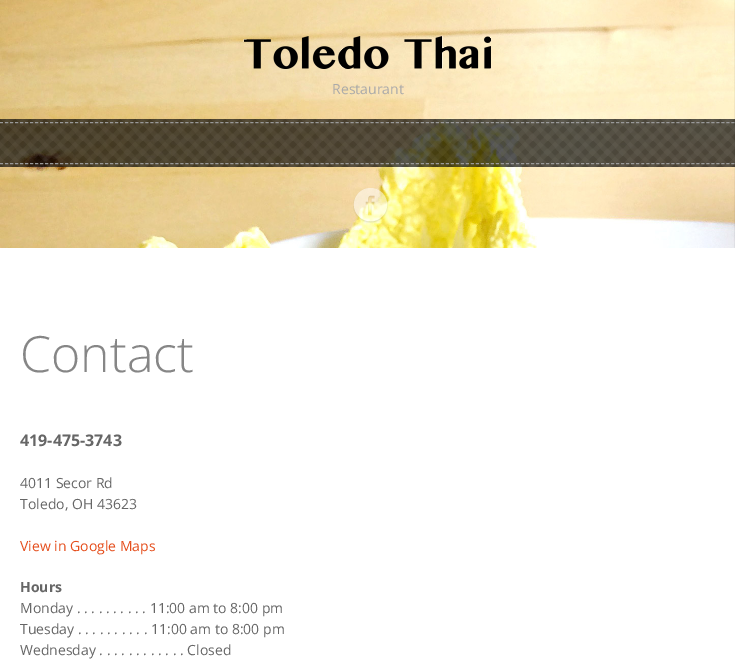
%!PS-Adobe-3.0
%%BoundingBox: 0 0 735 667
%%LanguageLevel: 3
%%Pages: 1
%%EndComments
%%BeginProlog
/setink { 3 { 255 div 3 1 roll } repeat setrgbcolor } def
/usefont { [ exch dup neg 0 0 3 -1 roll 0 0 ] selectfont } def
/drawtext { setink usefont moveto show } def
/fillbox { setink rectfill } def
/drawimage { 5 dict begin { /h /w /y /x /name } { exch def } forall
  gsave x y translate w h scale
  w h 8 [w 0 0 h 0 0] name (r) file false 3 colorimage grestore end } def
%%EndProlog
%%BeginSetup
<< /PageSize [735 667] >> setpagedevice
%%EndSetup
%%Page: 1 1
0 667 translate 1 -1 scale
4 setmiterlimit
0 0 735 667 255 255 255 fillbox
(assets/img1.rgb) 0 0 735 248 drawimage
(assets/img2.rgb) 243 36 249 33 drawimage
(Restaurant) 332 94 /OpenSans-Regular 14 170 170 170 drawtext
(assets/img3.rgb) 0 119 735 48 drawimage
153 153 153 setink
[3 2.01] 0 setdash
0 122.5 moveto 735 122.5 lineto stroke
0 163.5 moveto 735 163.5 lineto stroke
(assets/img4.rgb) 353 188 35 35 drawimage
(Contact) 20 372 /OpenSans-Light 50 134 134 134 drawtext
(419-475-3743) 20 446 /OpenSans-Bold 16 102 102 102 drawtext
(4011 Secor Rd) 20 488 /OpenSans-Regular 14 102 102 102 drawtext
(Toledo, OH 43623) 20 509 /OpenSans-Regular 14 102 102 102 drawtext
(View in Google Maps) 20 551 /OpenSans-Regular 14 229 77 27 drawtext
(Hours) 20 592 /OpenSans-Bold 14 102 102 102 drawtext
(Monday . . . . . . . . . . 11:00 am to 8:00 pm) 20 613 /OpenSans-Regular 14 102 102 102 drawtext
(Tuesday . . . . . . . . . . 11:00 am to 8:00 pm) 20 634 /OpenSans-Regular 14 102 102 102 drawtext
(Wednesday . . . . . . . . . . . . Closed) 20 655 /OpenSans-Regular 14 102 102 102 drawtext
showpage
%%EOF
